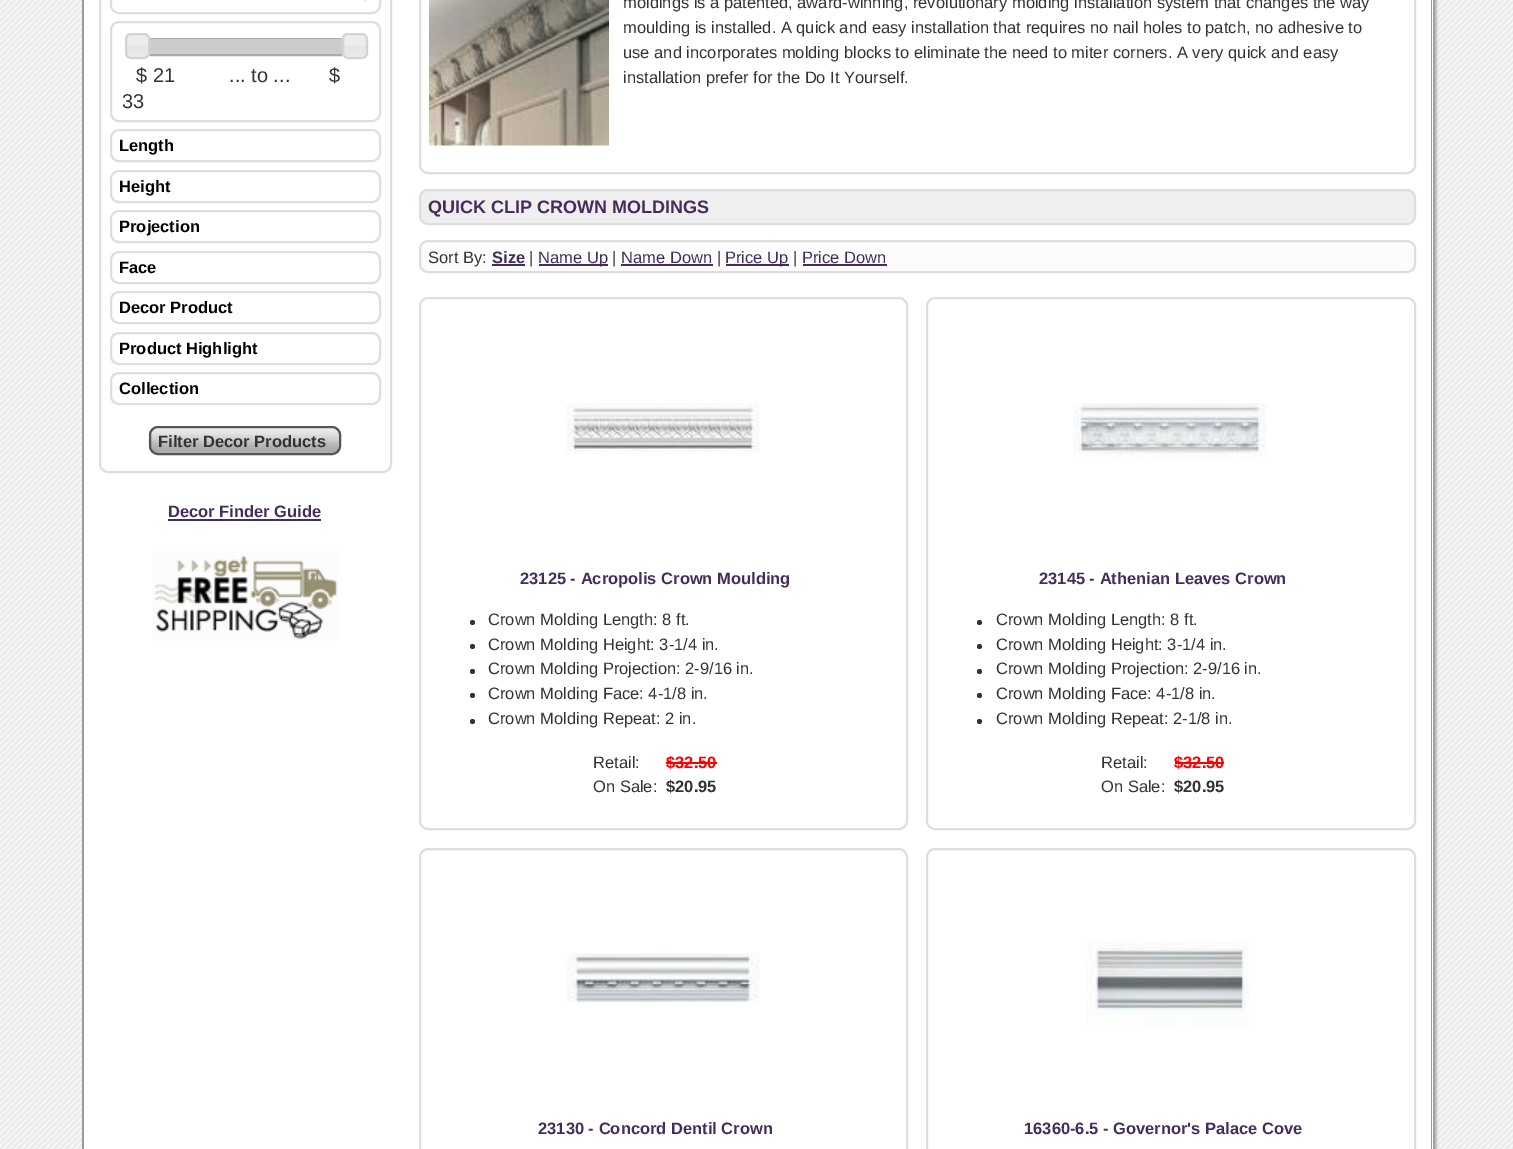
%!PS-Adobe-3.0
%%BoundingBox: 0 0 1513 1149
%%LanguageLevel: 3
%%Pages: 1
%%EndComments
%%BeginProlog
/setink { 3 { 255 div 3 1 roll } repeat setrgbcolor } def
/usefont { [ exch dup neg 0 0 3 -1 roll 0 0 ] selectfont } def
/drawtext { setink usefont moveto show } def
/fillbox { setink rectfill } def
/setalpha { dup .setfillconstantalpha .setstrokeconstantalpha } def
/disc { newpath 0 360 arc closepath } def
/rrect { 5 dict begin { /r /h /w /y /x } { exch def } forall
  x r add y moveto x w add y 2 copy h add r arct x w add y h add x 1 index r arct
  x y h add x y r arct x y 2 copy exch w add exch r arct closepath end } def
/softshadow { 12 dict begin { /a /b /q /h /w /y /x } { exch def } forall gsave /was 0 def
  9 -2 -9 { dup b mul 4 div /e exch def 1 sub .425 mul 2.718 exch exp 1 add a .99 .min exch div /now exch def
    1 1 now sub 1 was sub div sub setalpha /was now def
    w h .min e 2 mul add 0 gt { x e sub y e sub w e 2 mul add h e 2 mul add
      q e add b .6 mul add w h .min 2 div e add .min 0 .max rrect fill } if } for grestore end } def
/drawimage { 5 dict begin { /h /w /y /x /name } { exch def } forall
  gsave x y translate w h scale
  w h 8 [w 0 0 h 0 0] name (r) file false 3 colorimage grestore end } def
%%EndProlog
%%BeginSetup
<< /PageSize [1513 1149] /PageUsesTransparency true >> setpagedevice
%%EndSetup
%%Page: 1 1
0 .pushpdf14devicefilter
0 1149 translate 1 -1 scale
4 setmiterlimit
0 0 1513 1149 255 255 255 fillbox
(assets/img1.rgb) 0 0 1513 1149 drawimage
153 153 153 setink
86 -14 1350 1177 9 1.5 1 softshadow
84 0 1349 1149 255 255 255 fillbox
153 153 153 setink
92 -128 moveto 1424 -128 lineto 1428 -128 1432 -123 1432 -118 curveto 1432 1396 lineto 1432 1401 1428 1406 1424 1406 curveto 92 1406 lineto 87 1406 82 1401 82 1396 curveto 82 -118 lineto 82 -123 87 -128 92 -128 curveto closepath 92 -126 moveto 1424 -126 lineto 1428 -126 1431 -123 1431 -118 curveto 1431 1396 lineto 1431 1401 1428 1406 1424 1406 curveto 92 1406 lineto 87 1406 84 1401 84 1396 curveto 84 -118 lineto 84 -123 87 -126 92 -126 curveto closepath eofill
222 222 222 setink
2 setlinewidth
100 -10 291 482 8 rrect stroke
(assets/img2.rgb) 364 0 3 1 drawimage
111 -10 269 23 8 rrect stroke
111 22 269 99 8 rrect stroke
170 170 170 setink
136 39 219 16 rectstroke
149 39 194 15 204 204 204 fillbox
(assets/img3.rgb) 124 33 26 25 drawimage
211 211 211 setink
126 34 23 24 5 rrect stroke
(assets/img4.rgb) 342 33 25 25 drawimage
343 34 24 24 5 rrect stroke
($) 136 82 /LiberationSans-Regular 20 51 51 51 drawtext
(21) 153 82 /LiberationSans-Regular 20 51 51 51 drawtext
(... to ...) 229 82 /LiberationSans-Regular 20 51 51 51 drawtext
($) 329 82 /LiberationSans-Regular 20 51 51 51 drawtext
(33) 122 108 /LiberationSans-Regular 20 51 51 51 drawtext
222 222 222 setink
111 130 269 31 8 rrect stroke
(Length) 119 151 /LiberationSans-Bold 16.5 0 0 0 drawtext
222 222 222 setink
111 171 269 31 8 rrect stroke
(Height) 119 192 /LiberationSans-Bold 16.5 0 0 0 drawtext
222 222 222 setink
111 211 269 31 8 rrect stroke
(Projection) 119 232 /LiberationSans-Bold 16.5 0 0 0 drawtext
222 222 222 setink
111 252 269 31 8 rrect stroke
(Face) 119 273 /LiberationSans-Bold 16.5 0 0 0 drawtext
222 222 222 setink
111 292 269 31 8 rrect stroke
(Decor Product) 119 313 /LiberationSans-Bold 16.5 0 0 0 drawtext
222 222 222 setink
111 333 269 31 8 rrect stroke
(Product Highlight) 119 354 /LiberationSans-Bold 16.5 0 0 0 drawtext
222 222 222 setink
111 373 269 31 8 rrect stroke
(Collection) 119 394 /LiberationSans-Bold 16.5 0 0 0 drawtext
(assets/img5.rgb) 148 426 193 27 drawimage
85 85 85 setink
150 427 190 27 8 rrect stroke
(Filter Decor Products) 158 447 /LiberationSans-Bold 16.5 51 51 51 drawtext
(Decor Finder Guide) 168 517 /LiberationSans-Bold 16.5 69 45 91 drawtext
168 519 153 2 69 45 91 fillbox
(assets/img6.rgb) 152 551 187 90 drawimage
222 222 222 setink
420 -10 995 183 8 rrect stroke
(assets/img7.rgb) 429 0 180 146 drawimage
(moldings is a patented, award-winning, revolutionary molding installation system that changes the way) 623 8 /LiberationSans-Regular 16.5 51 51 51 drawtext
(moulding is installed. A quick and easy installation that requires no nail holes to patch, no adhesive to) 623 33 /LiberationSans-Regular 16.5 51 51 51 drawtext
(use and incorporates molding blocks to eliminate the need to miter corners. A very quick and easy) 623 58 /LiberationSans-Regular 16.5 51 51 51 drawtext
(installation prefer for the Do It Yourself.) 623 83 /LiberationSans-Regular 16.5 51 51 51 drawtext
239 239 239 setink
420 190 995 34 8 rrect gsave fill grestore
222 222 222 setink
stroke
(QUICK CLIP CROWN MOLDINGS) 428 213 /LiberationSans-Bold 18 69 45 91 drawtext
252 252 252 setink
420 241 995 31 8 rrect gsave fill grestore
222 222 222 setink
stroke
(Sort By:) 428 263 /LiberationSans-Regular 16.5 51 51 51 drawtext
(Size) 492 263 /LiberationSans-Bold 16.5 69 45 91 drawtext
492 264 33 2 69 45 91 fillbox
(|) 529 263 /LiberationSans-Regular 16.5 51 51 51 drawtext
539 264 69 2 69 45 91 fillbox
(Name Up) 538 263 /LiberationSans-Regular 16.5 69 45 91 drawtext
(|) 612 263 /LiberationSans-Regular 16.5 51 51 51 drawtext
(Name Down) 621 263 /LiberationSans-Regular 16.5 69 45 91 drawtext
621 264 92 2 69 45 91 fillbox
(|) 717 263 /LiberationSans-Regular 16.5 51 51 51 drawtext
726 264 63 2 69 45 91 fillbox
(Price Up) 725 263 /LiberationSans-Regular 16.5 69 45 91 drawtext
(|) 793 263 /LiberationSans-Regular 16.5 51 51 51 drawtext
(Price Down) 802 263 /LiberationSans-Regular 16.5 69 45 91 drawtext
803 264 84 2 69 45 91 fillbox
222 222 222 setink
420 298 487 531 8 rrect stroke
(assets/img8.rgb) 566 403 194 49 drawimage
(23125 - Acropolis Crown Moulding) 520 584 /LiberationSans-Bold 16.5 69 45 91 drawtext
51 51 51 setink
472.5 622.5 2.5 disc fill
(Crown Molding Length: 8 ft.) 488 625 /LiberationSans-Regular 16.5 51 51 51 drawtext
472.5 646.5 2.5 disc fill
(Crown Molding Height: 3-1/4 in.) 488 650 /LiberationSans-Regular 16.5 51 51 51 drawtext
472.5 671.5 2.5 disc fill
(Crown Molding Projection: 2-9/16 in.) 488 674 /LiberationSans-Regular 16.5 51 51 51 drawtext
472.5 695.5 2.5 disc fill
(Crown Molding Face: 4-1/8 in.) 488 699 /LiberationSans-Regular 16.5 51 51 51 drawtext
472.5 721.5 2.5 disc fill
(Crown Molding Repeat: 2 in.) 488 724 /LiberationSans-Regular 16.5 51 51 51 drawtext
(Retail:) 593 768 /LiberationSans-Regular 16.5 51 51 51 drawtext
($32.50) 666 768 /LiberationSans-Bold 16.5 255 0 0 drawtext
666 762 51 2 255 0 0 fillbox
(On Sale:) 593 792 /LiberationSans-Regular 16.5 51 51 51 drawtext
($20.95) 666 792 /LiberationSans-Bold 16.5 51 51 51 drawtext
222 222 222 setink
927 298 488 531 8 rrect stroke
(assets/img9.rgb) 1073 403 194 54 drawimage
(23145 - Athenian Leaves Crown) 1039 584 /LiberationSans-Bold 16.5 69 45 91 drawtext
51 51 51 setink
979.5 622.5 2.5 disc fill
(Crown Molding Length: 8 ft.) 996 625 /LiberationSans-Regular 16.5 51 51 51 drawtext
979.5 646.5 2.5 disc fill
(Crown Molding Height: 3-1/4 in.) 996 650 /LiberationSans-Regular 16.5 51 51 51 drawtext
979.5 671.5 2.5 disc fill
(Crown Molding Projection: 2-9/16 in.) 996 674 /LiberationSans-Regular 16.5 51 51 51 drawtext
979.5 695.5 2.5 disc fill
(Crown Molding Face: 4-1/8 in.) 996 699 /LiberationSans-Regular 16.5 51 51 51 drawtext
979.5 721.5 2.5 disc fill
(Crown Molding Repeat: 2-1/8 in.) 996 724 /LiberationSans-Regular 16.5 51 51 51 drawtext
(Retail:) 1101 768 /LiberationSans-Regular 16.5 51 51 51 drawtext
($32.50) 1174 768 /LiberationSans-Bold 16.5 255 0 0 drawtext
1175 762 49 2 255 0 0 fillbox
(On Sale:) 1101 792 /LiberationSans-Regular 16.5 51 51 51 drawtext
($20.95) 1174 792 /LiberationSans-Bold 16.5 51 51 51 drawtext
222 222 222 setink
420 849 487 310 8 rrect stroke
(assets/img10.rgb) 567 953 193 50 drawimage
(23130 - Concord Dentil Crown) 538 1134 /LiberationSans-Bold 16.5 69 45 91 drawtext
222 222 222 setink
927 849 488 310 8 rrect stroke
(assets/img11.rgb) 1086 942 163 85 drawimage
(16360-6.5 - Governor's Palace Cove) 1024 1134 /LiberationSans-Bold 16.5 69 45 91 drawtext
.poppdf14devicefilter showpage
%%EOF
